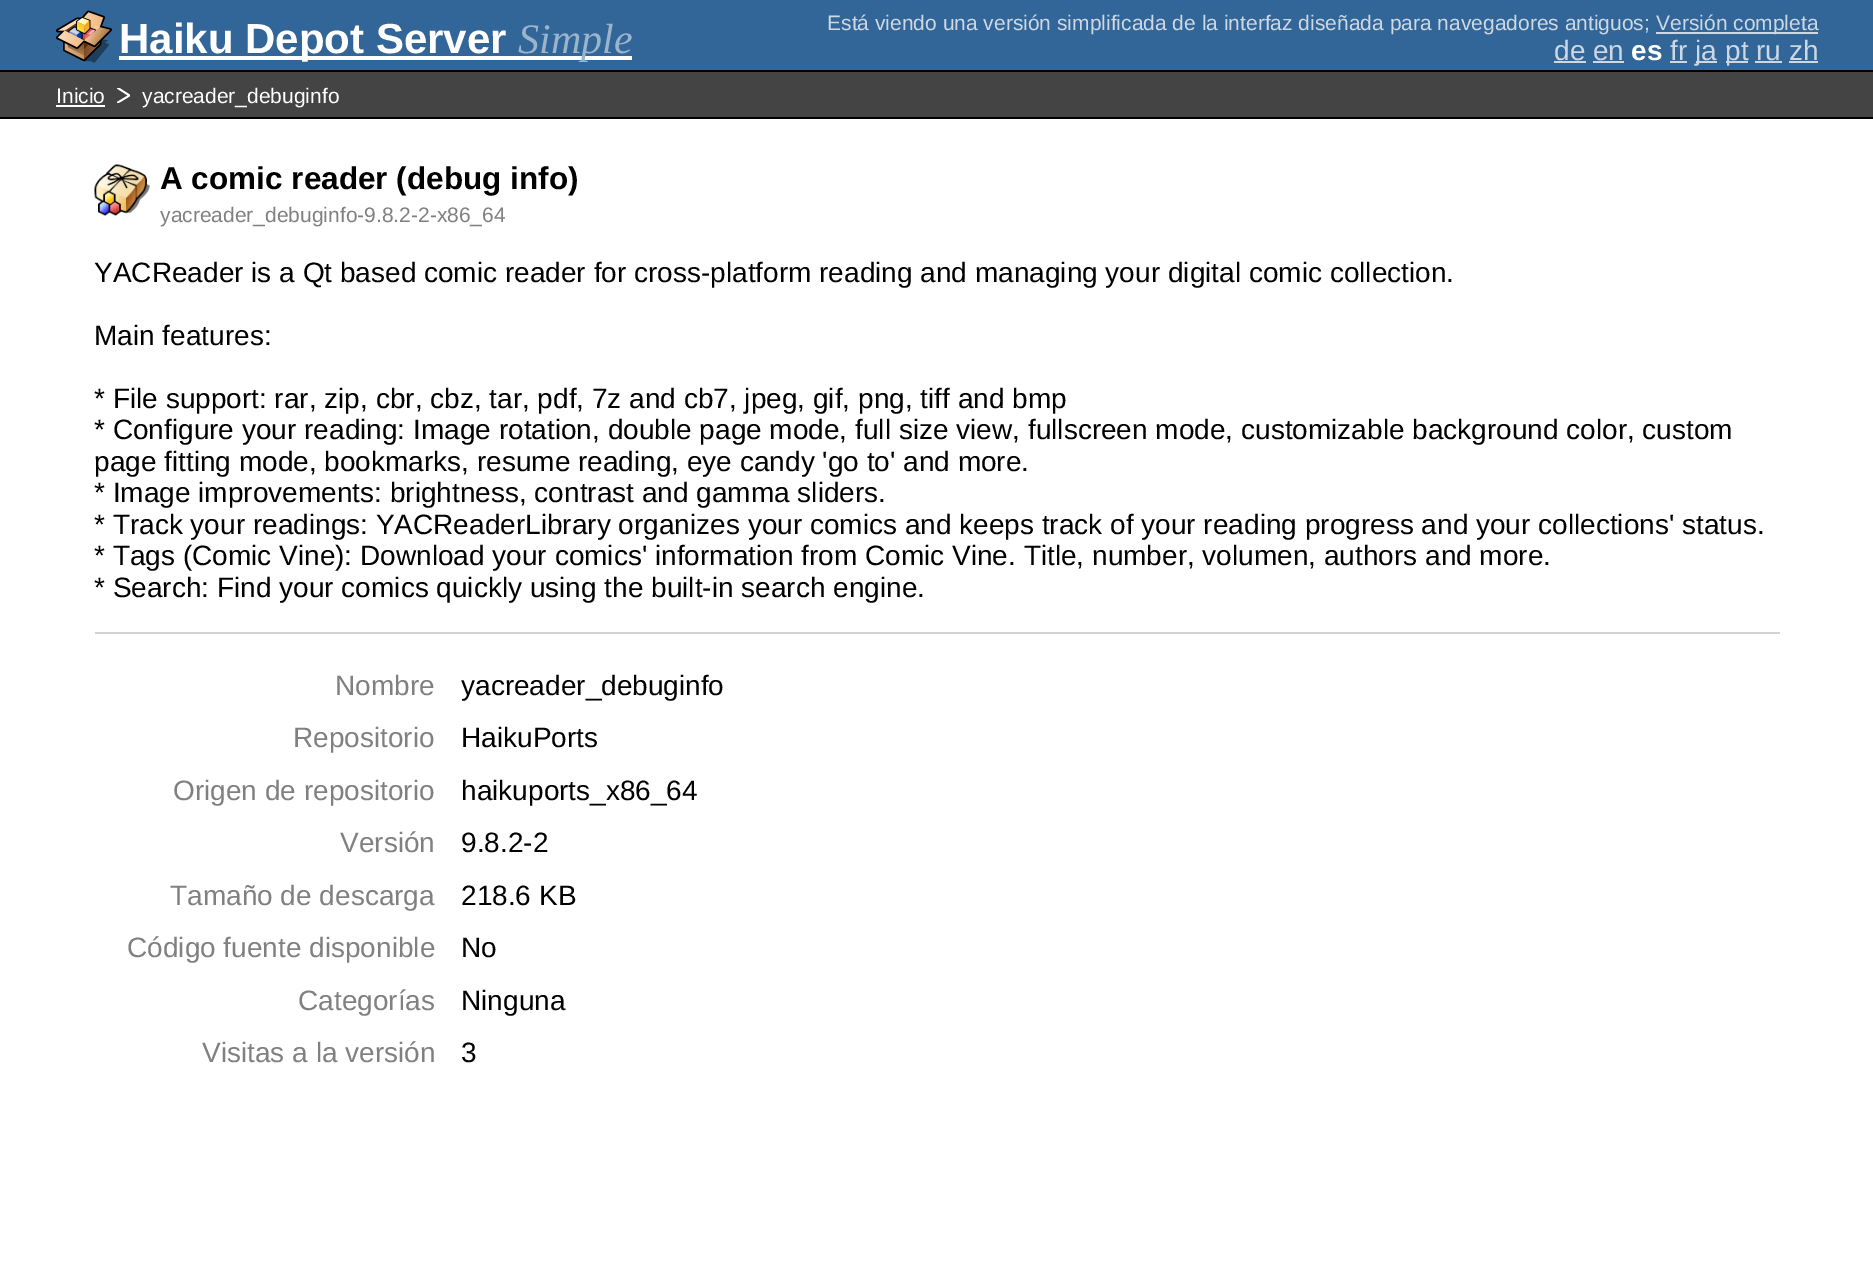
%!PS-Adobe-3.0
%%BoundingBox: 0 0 1873 1264
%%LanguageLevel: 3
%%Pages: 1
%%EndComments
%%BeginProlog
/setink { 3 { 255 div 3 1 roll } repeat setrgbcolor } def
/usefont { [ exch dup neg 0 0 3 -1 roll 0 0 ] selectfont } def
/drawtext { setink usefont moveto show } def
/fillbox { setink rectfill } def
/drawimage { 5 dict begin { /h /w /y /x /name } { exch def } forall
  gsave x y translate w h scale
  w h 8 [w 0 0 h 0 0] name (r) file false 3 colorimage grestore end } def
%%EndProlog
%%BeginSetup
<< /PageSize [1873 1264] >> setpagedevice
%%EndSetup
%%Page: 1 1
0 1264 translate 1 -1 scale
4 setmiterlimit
0 0 1873 1264 255 255 255 fillbox
0 0 1873 70 51 102 152 fillbox
0 70 1873 2 0 0 0 fillbox
(assets/img1.rgb) 56 10 56 53 drawimage
119 56 513 4 255 255 255 fillbox
(Haiku Depot Server) 119 53 /LiberationSans-Bold 42 255 255 255 drawtext
(Simple) 518 53 /LiberationSerif-Italic 42 154 180 204 drawtext
(Está viendo una versión simplificada de la interfaz diseñada para navegadores antiguos;) 827 30 /LiberationSans-Regular 21 204 217 229 drawtext
1656 32 162 2 204 217 229 fillbox
(Versión completa) 1656 30 /LiberationSans-Regular 21 204 217 229 drawtext
(de en) 1554 60 /LiberationSans-Regular 28 204 217 229 drawtext
1554 61 32 2 204 217 229 fillbox
1593 61 31 2 204 217 229 fillbox
(es) 1631 60 /LiberationSans-Bold 28 255 255 255 drawtext
(fr) 1670 60 /LiberationSans-Regular 28 204 217 229 drawtext
1670 61 17 2 204 217 229 fillbox
1696 61 21 2 204 217 229 fillbox
(ja) 1695 60 /LiberationSans-Regular 28 204 217 229 drawtext
1726 61 22 2 204 217 229 fillbox
(pt) 1725 60 /LiberationSans-Regular 28 204 217 229 drawtext
1755 61 27 2 204 217 229 fillbox
(ru zh) 1756 60 /LiberationSans-Regular 28 204 217 229 drawtext
1789 61 29 2 204 217 229 fillbox
0 72 1873 45 68 68 68 fillbox
0 117 1873 2 0 0 0 fillbox
(Inicio) 56 103 /LiberationSans-Regular 21 255 255 255 drawtext
56 105 49 2 255 255 255 fillbox
(yacreader_debuginfo) 142 103 /LiberationSans-Regular 21 255 255 255 drawtext
gsave
117 88 13 15 rectclip
1.8 setlinewidth
117 103 moveto 129.5 95.5 lineto 117 87.5 lineto stroke
grestore
(assets/img2.rgb) 94 164 56 52 drawimage
(A comic reader \(debug info\)) 160 189 /LiberationSans-Bold 31.5 0 0 0 drawtext
(yacreader_debuginfo-9.8.2-2-x86_64) 160 222 /LiberationSans-Regular 21 128 128 128 drawtext
(YACReader is a Qt based comic reader for cross-platform reading and managing your digital comic collection.) 94 282 /LiberationSans-Regular 28 0 0 0 drawtext
(Main features:) 94 345 /LiberationSans-Regular 28 0 0 0 drawtext
(* File support: rar, zip, cbr, cbz, tar, pdf, 7z and cb7, jpeg, gif, png, tiff and bmp) 94 408 /LiberationSans-Regular 28 0 0 0 drawtext
(* Configure your reading: Image rotation, double page mode, full size view, fullscreen mode, customizable background color, custom) 94 439 /LiberationSans-Regular 28 0 0 0 drawtext
(page fitting mode, bookmarks, resume reading, eye candy 'go to' and more.) 94 471 /LiberationSans-Regular 28 0 0 0 drawtext
(* Image improvements: brightness, contrast and gamma sliders.) 94 502 /LiberationSans-Regular 28 0 0 0 drawtext
(* Track your readings: YACReaderLibrary organizes your comics and keeps track of your reading progress and your collections' status.) 94 534 /LiberationSans-Regular 28 0 0 0 drawtext
(* Tags \(Comic Vine\): Download your comics' information from Comic Vine. Title, number, volumen, authors and more.) 94 565 /LiberationSans-Regular 28 0 0 0 drawtext
(* Search: Find your comics quickly using the built-in search engine.) 94 597 /LiberationSans-Regular 28 0 0 0 drawtext
95 632 1685 2 211 211 211 fillbox
(Nombre) 335 695 /LiberationSans-Regular 28 128 128 128 drawtext
(yacreader_debuginfo) 461 695 /LiberationSans-Regular 28 0 0 0 drawtext
(Repositorio) 293 747 /LiberationSans-Regular 28 128 128 128 drawtext
(HaikuPorts) 461 747 /LiberationSans-Regular 28 0 0 0 drawtext
(Origen de repositorio) 173 800 /LiberationSans-Regular 28 128 128 128 drawtext
(haikuports_x86_64) 461 800 /LiberationSans-Regular 28 0 0 0 drawtext
(Versión) 340 852 /LiberationSans-Regular 28 128 128 128 drawtext
(9.8.2-2) 461 852 /LiberationSans-Regular 28 0 0 0 drawtext
(Tamaño de descarga) 170 905 /LiberationSans-Regular 28 128 128 128 drawtext
(218.6 KB) 461 905 /LiberationSans-Regular 28 0 0 0 drawtext
(Código fuente disponible) 127 957 /LiberationSans-Regular 28 128 128 128 drawtext
(No) 461 957 /LiberationSans-Regular 28 0 0 0 drawtext
(Categorías) 298 1010 /LiberationSans-Regular 28 128 128 128 drawtext
(Ninguna) 461 1010 /LiberationSans-Regular 28 0 0 0 drawtext
(Visitas a la versión) 202 1062 /LiberationSans-Regular 28 128 128 128 drawtext
(3) 461 1062 /LiberationSans-Regular 28 0 0 0 drawtext
showpage
%%EOF
